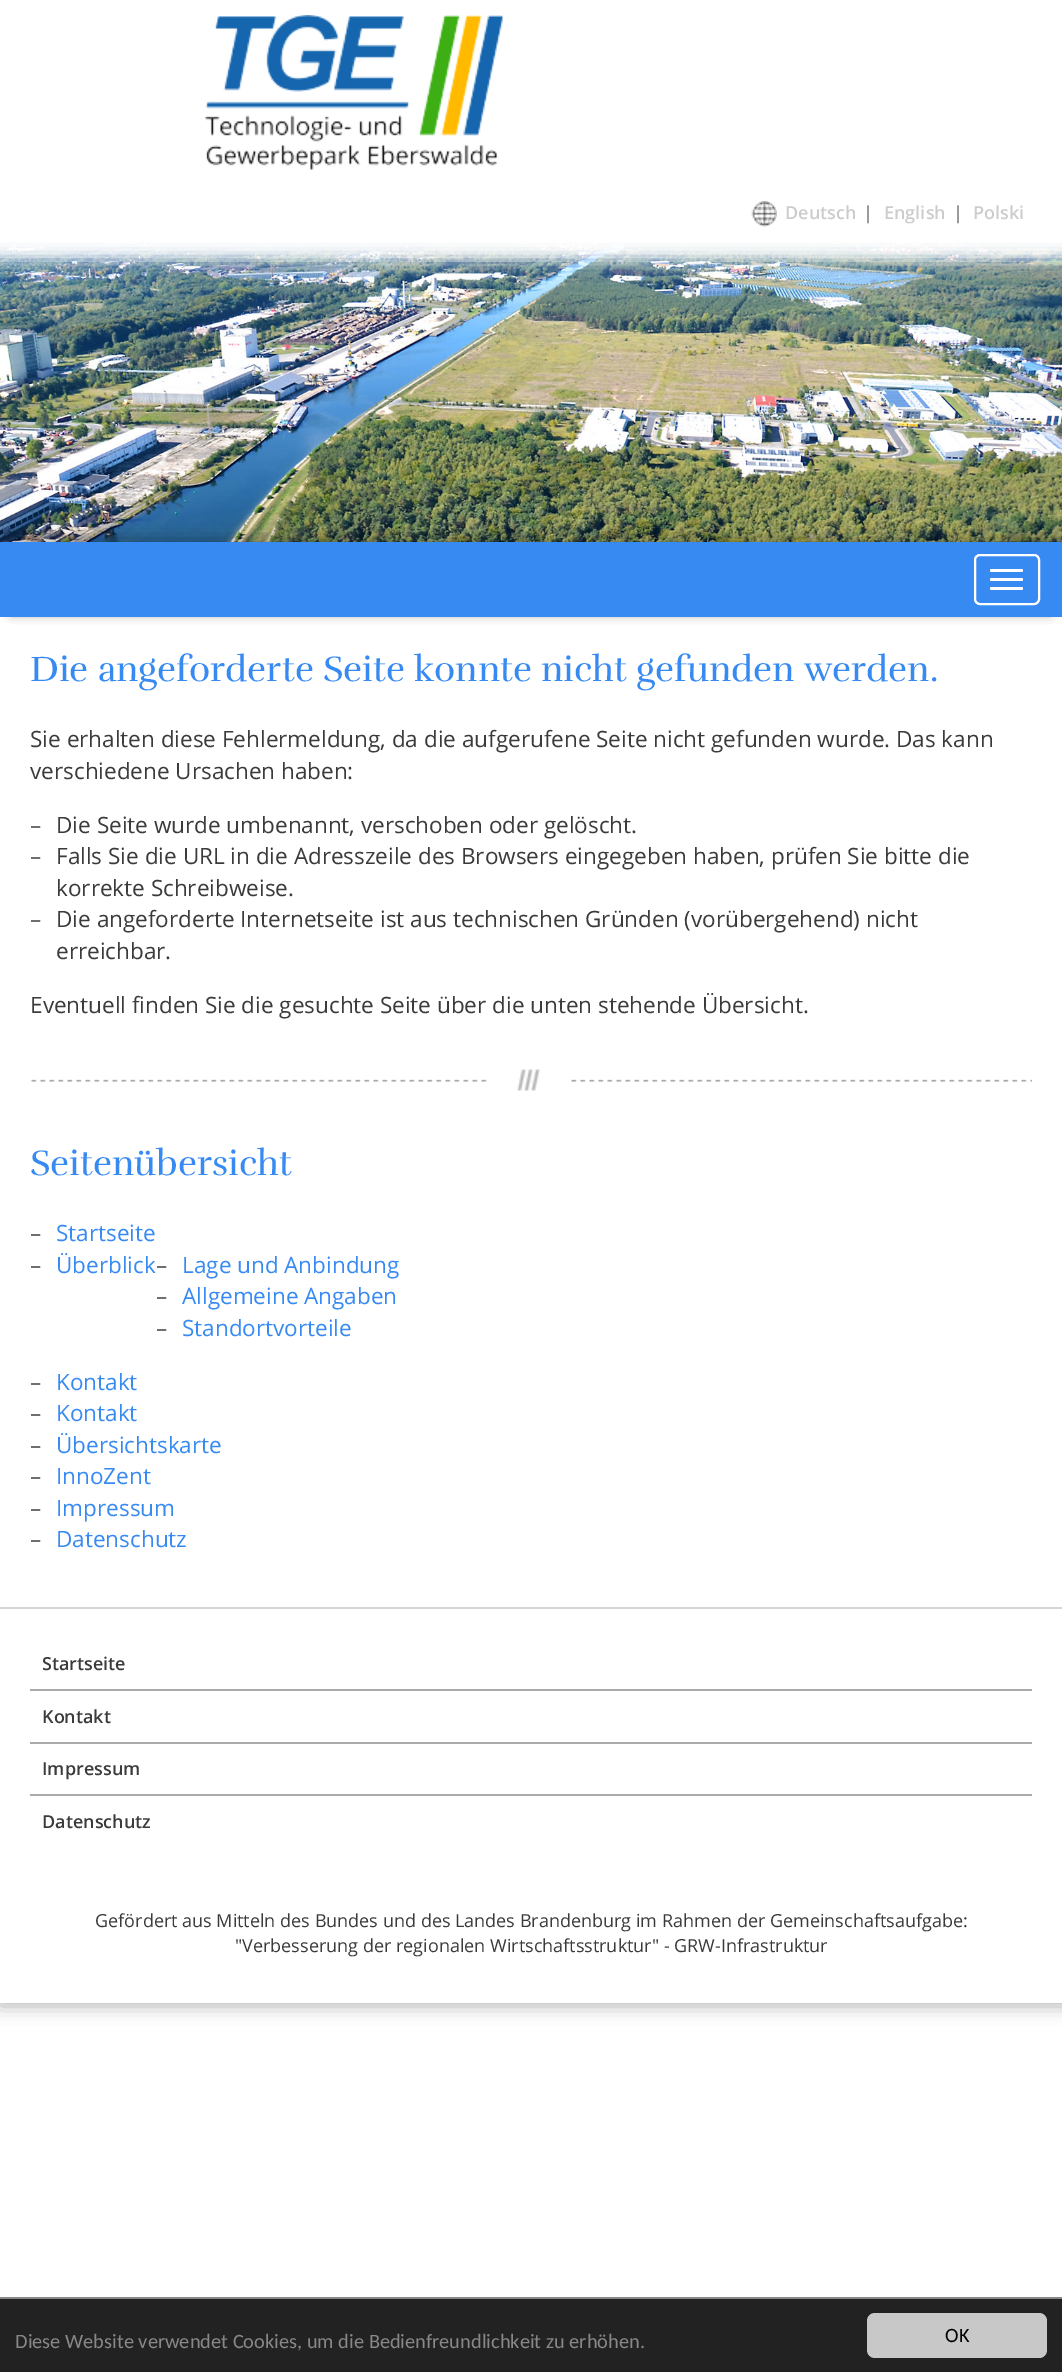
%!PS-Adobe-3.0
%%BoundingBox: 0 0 1062 2372
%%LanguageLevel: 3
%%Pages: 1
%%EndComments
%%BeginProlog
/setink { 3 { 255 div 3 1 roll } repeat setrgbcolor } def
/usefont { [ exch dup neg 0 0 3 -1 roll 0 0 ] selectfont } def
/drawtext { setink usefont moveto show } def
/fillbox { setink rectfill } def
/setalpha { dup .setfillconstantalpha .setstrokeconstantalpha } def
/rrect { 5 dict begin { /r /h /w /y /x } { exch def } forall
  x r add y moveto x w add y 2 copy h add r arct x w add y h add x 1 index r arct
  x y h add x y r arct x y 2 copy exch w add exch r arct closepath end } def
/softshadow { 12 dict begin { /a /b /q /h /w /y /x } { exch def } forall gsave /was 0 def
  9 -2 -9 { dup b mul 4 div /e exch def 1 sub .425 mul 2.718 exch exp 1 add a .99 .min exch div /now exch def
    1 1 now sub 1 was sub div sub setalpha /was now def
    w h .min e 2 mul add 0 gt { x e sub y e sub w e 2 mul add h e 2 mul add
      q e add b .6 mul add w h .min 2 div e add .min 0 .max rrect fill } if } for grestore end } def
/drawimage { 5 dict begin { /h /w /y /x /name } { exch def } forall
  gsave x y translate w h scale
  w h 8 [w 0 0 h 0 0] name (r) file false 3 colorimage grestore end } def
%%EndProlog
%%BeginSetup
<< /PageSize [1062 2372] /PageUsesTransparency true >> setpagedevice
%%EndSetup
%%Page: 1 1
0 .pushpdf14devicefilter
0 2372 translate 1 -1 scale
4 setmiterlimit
0 0 1062 2372 255 255 255 fillbox
(assets/img1.rgb) 0 242 1062 300 drawimage
-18 -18 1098 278 0 7.5 1 softshadow
(assets/img2.rgb) 205 15 298 155 drawimage
(assets/img3.rgb) 751 201 26 26 drawimage
(Deutsch) 785 219 /OpenSans-SemiBold 18 204 204 204 drawtext
(|) 863 219 /OpenSans-SemiBold 18 119 119 119 drawtext
(English) 884 219 /OpenSans-SemiBold 18 204 204 204 drawtext
(|) 953 219 /OpenSans-SemiBold 18 119 119 119 drawtext
(Polski) 973 219 /OpenSans-SemiBold 18 204 204 204 drawtext
0 0 0 setink
0 539 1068 1467 0 9 0.3 softshadow
0 617 1062 990 255 255 255 fillbox
0 0 0 setink
12 560 1038 51 0 6 0.75 softshadow
0 542 1062 75 56 138 243 fillbox
255 255 255 setink
2 setlinewidth
975 555 64 49 5 rrect stroke
990 569 33 3 1.5 rrect fill
990 578 33 3 1.5 rrect fill
990 587 33 3 1.5 rrect fill
(Die angeforderte Seite konnte nicht gefunden werden.) 30 681 /Rufina-Regular 36 56 138 243 drawtext
(Sie erhalten diese Fehlermeldung, da die aufgerufene Seite nicht gefunden wurde. Das kann) 30 747 /OpenSans-Regular 22.5 59 59 59 drawtext
(verschiedene Ursachen haben:) 30 779 /OpenSans-Regular 22.5 59 59 59 drawtext
(–) 30 833 /OpenSans-Regular 22.5 59 59 59 drawtext
(Die Seite wurde umbenannt, verschoben oder gelöscht.) 56 833 /OpenSans-Regular 22.5 59 59 59 drawtext
(–) 30 864 /OpenSans-Regular 22.5 59 59 59 drawtext
(Falls Sie die URL in die Adresszeile des Browsers eingegeben haben, prüfen Sie bitte die) 56 864 /OpenSans-Regular 22.5 59 59 59 drawtext
(korrekte Schreibweise.) 56 896 /OpenSans-Regular 22.5 59 59 59 drawtext
(–) 30 927 /OpenSans-Regular 22.5 59 59 59 drawtext
(Die angeforderte Internetseite ist aus technischen Gründen \(vorübergehend\) nicht) 56 927 /OpenSans-Regular 22.5 59 59 59 drawtext
(erreichbar.) 56 959 /OpenSans-Regular 22.5 59 59 59 drawtext
(Eventuell finden Sie die gesuchte Seite über die unten stehende Übersicht.) 30 1013 /OpenSans-Regular 22.5 59 59 59 drawtext
(assets/img4.rgb) 31 1069 1001 22 drawimage
(Seitenübersicht) 30 1175 /Rufina-Regular 36 56 138 243 drawtext
(–) 30 1241 /OpenSans-Regular 22.5 59 59 59 drawtext
(Startseite) 56 1241 /OpenSans-Regular 22.5 56 138 243 drawtext
(–) 30 1273 /OpenSans-Regular 22.5 59 59 59 drawtext
(Überblick) 56 1273 /OpenSans-Regular 22.5 56 138 243 drawtext
(–) 156 1273 /OpenSans-Regular 22.5 59 59 59 drawtext
(Lage und Anbindung) 182 1273 /OpenSans-Regular 22.5 56 138 243 drawtext
(–) 156 1304 /OpenSans-Regular 22.5 59 59 59 drawtext
(Allgemeine Angaben) 182 1304 /OpenSans-Regular 22.5 56 138 243 drawtext
(–) 156 1336 /OpenSans-Regular 22.5 59 59 59 drawtext
(Standortvorteile) 182 1336 /OpenSans-Regular 22.5 56 138 243 drawtext
(–) 30 1390 /OpenSans-Regular 22.5 59 59 59 drawtext
(Kontakt) 56 1390 /OpenSans-Regular 22.5 56 138 243 drawtext
(–) 30 1421 /OpenSans-Regular 22.5 59 59 59 drawtext
(Kontakt) 56 1421 /OpenSans-Regular 22.5 56 138 243 drawtext
(–) 30 1453 /OpenSans-Regular 22.5 59 59 59 drawtext
(Übersichtskarte) 56 1453 /OpenSans-Regular 22.5 56 138 243 drawtext
(–) 30 1484 /OpenSans-Regular 22.5 59 59 59 drawtext
(InnoZent) 56 1484 /OpenSans-Regular 22.5 56 138 243 drawtext
(–) 30 1516 /OpenSans-Regular 22.5 59 59 59 drawtext
(Impressum) 56 1516 /OpenSans-Regular 22.5 56 138 243 drawtext
(–) 30 1547 /OpenSans-Regular 22.5 59 59 59 drawtext
(Datenschutz) 56 1547 /OpenSans-Regular 22.5 56 138 243 drawtext
0 1609 1062 394 255 255 255 fillbox
0 1607 1062 2 212 212 212 fillbox
30 1689 1002 2 170 170 170 fillbox
(Startseite) 42 1670 /OpenSans-SemiBold 18 59 59 59 drawtext
30 1742 1002 2 170 170 170 fillbox
(Kontakt) 42 1723 /OpenSans-SemiBold 18 59 59 59 drawtext
30 1794 1002 2 170 170 170 fillbox
(Impressum) 42 1775 /OpenSans-SemiBold 18 59 59 59 drawtext
(Datenschutz) 42 1828 /OpenSans-SemiBold 18 59 59 59 drawtext
(Gefördert aus Mitteln des Bundes und des Landes Brandenburg im Rahmen der Gemeinschaftsaufgabe:) 95 1927 /OpenSans-Regular 18 59 59 59 drawtext
("Verbesserung der regionalen Wirtschaftsstruktur" - GRW-Infrastruktur) 235 1952 /OpenSans-Regular 18 59 59 59 drawtext
0 2299 1062 73 34 34 34 fillbox
0 2297 1062 2 136 136 136 fillbox
(Diese Website verwendet Cookies, um die Bedienfreundlichkeit zu erhöhen.) 15 2348 /Carlito-Regular 20.4 136 136 136 drawtext
200 200 200 setink
867 2313 180 45 8 rrect fill
(OK) 945 2342 /Carlito-Regular 20.4 0 0 0 drawtext
.poppdf14devicefilter showpage
%%EOF
